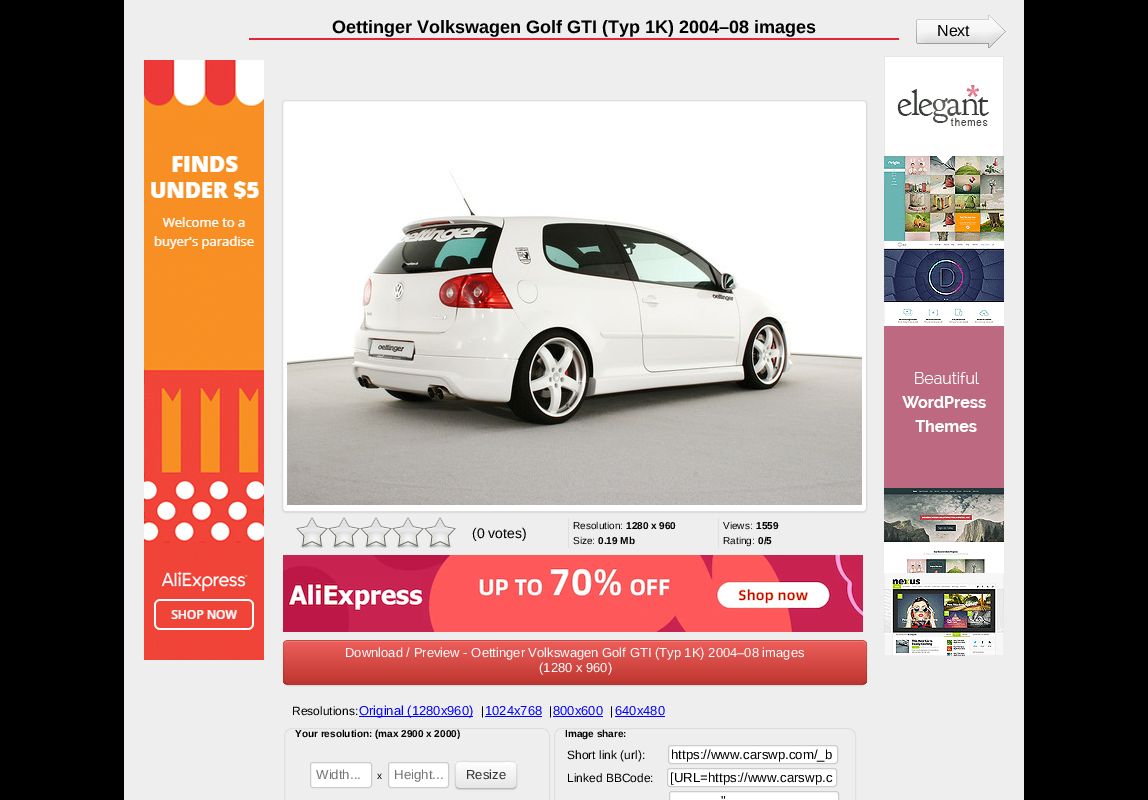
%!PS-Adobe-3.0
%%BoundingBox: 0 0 1148 800
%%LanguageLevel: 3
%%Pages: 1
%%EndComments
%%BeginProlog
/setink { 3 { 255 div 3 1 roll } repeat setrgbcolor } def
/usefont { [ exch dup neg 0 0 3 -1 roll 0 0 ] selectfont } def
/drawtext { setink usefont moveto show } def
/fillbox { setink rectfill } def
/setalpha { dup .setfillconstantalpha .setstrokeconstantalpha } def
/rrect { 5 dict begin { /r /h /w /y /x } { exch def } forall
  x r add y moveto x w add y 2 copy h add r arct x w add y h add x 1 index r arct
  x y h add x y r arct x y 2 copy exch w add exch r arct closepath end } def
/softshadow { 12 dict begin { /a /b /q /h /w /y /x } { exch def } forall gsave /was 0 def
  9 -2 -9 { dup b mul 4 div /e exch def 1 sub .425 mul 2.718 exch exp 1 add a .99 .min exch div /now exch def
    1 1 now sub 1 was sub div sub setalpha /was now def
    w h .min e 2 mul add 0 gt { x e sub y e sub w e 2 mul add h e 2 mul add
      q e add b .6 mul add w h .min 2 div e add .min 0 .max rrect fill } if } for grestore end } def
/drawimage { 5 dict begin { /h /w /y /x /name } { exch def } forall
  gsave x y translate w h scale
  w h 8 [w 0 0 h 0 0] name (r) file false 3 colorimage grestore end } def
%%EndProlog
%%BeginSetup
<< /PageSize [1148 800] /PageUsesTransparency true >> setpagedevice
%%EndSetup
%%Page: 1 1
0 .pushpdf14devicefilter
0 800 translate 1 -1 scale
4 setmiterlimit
0 0 1148 800 0 0 0 fillbox
124 0 900 800 238 238 238 fillbox
249 38 650 2 227 38 54 fillbox
(Oettinger Volkswagen Golf GTI \(Typ 1K\) 2004–08 images) 332 33 /LiberationSans-Bold 18 0 0 0 drawtext
(assets/img1.rgb) 916 15 90 33 drawimage
(Next) 937 36 /LiberationSans-Regular 16 0 0 0 drawtext
(assets/img2.rgb) 144 60 120 600 drawimage
282 101 585 412 4 0.5 0.07 softshadow
255 255 255 setink
282.5 100.5 584 411 3.5 rrect gsave fill grestore
221 221 221 setink
stroke
(assets/img3.rgb) 287 169 575 336 drawimage
(assets/img4.rgb) 296 517 160 31 drawimage
(\(0 votes\)) 472 538 /LiberationSans-Regular 14 0 0 0 drawtext
568 518 1 30 223 223 223 fillbox
(Resolution:) 573 529 /LiberationSans-Regular 10 0 0 0 drawtext
(1280 x 960) 626 529 /LiberationSans-Bold 10 0 0 0 drawtext
(Size:) 573 544 /LiberationSans-Regular 10 0 0 0 drawtext
(0.19 Mb) 598 544 /LiberationSans-Bold 10 0 0 0 drawtext
718 518 1 30 223 223 223 fillbox
(Views:) 723 529 /LiberationSans-Regular 10 0 0 0 drawtext
(1559) 756 529 /LiberationSans-Bold 10 0 0 0 drawtext
(Rating:) 723 544 /LiberationSans-Regular 10 0 0 0 drawtext
(0/5) 758 544 /LiberationSans-Bold 10 0 0 0 drawtext
(assets/img5.rgb) 283 555 580 77 drawimage
283 641 584 45 5 1 0.05 softshadow
218 79 73 setink
283 640 584 45 5 rrect fill
gsave
283 640 584 45 5 rrect clip newpath
gsave 283 641 moveto 867 641 lineto 867 684 lineto 283 684 lineto closepath clip newpath
<< /ShadingType 2 /ColorSpace /DeviceRGB /Coords [575 641 575 684] /Extend [true true] /Function << /FunctionType 2 /Domain [0 1] /C0 [0.933 0.373 0.357] /C1 [0.741 0.212 0.184] /N 1 >> >> shfill grestore
grestore
241 127 123 setink
288 642 moveto 862 642 lineto 864 642 866 644 866 646 curveto 866 645 lineto 866 643 864 641 862 641 curveto 288 641 lineto 286 641 284 643 284 645 curveto 284 646 lineto 284 644 286 642 288 642 curveto closepath fill
0.25 setalpha
0 0 0 setink
865 683 moveto 864.5 684 863 684.5 862 684.5 curveto 288 684.5 lineto 287 684.5 285.5 684 285 683 curveto stroke
0.1 setalpha
285 683 moveto 284 682.5 283.5 681 283.5 680 curveto 283.5 645 lineto 283.5 644 284 642.5 285 642 curveto 285.5 641 287 640.5 288 640.5 curveto 862 640.5 lineto 863 640.5 864.5 641 865 642 curveto 866 642.5 866.5 644 866.5 645 curveto 866.5 680 lineto 866.5 681 866 682.5 865 683 curveto stroke
1 setalpha
(Download / Preview - Oettinger Volkswagen Golf GTI \(Typ 1K\) 2004–08 images) 345 657 /LiberationSans-Regular 13 255 255 255 drawtext
(\(1280 x 960\)) 539 672 /LiberationSans-Regular 13 255 255 255 drawtext
(Resolutions:) 292 715 /LiberationSans-Regular 12 0 0 0 drawtext
359 716 114 1 0 0 255 fillbox
(Original \(1280x960\)) 359 715 /LiberationSans-Regular 13 0 0 255 drawtext
(|) 481 715 /LiberationSans-Regular 12 0 0 0 drawtext
(1024x768) 485 715 /LiberationSans-Regular 13 0 0 255 drawtext
485 716 57 1 0 0 255 fillbox
(|) 549 715 /LiberationSans-Regular 12 0 0 0 drawtext
(800x600) 553 715 /LiberationSans-Regular 13 0 0 255 drawtext
553 716 50 1 0 0 255 fillbox
(|) 610 715 /LiberationSans-Regular 12 0 0 0 drawtext
(640x480) 615 715 /LiberationSans-Regular 13 0 0 255 drawtext
615 716 50 1 0 0 255 fillbox
223 223 223 setink
284.5 728.5 265 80 7.5 rrect stroke
(Your resolution: \(max 2900 x 2000\)) 295 737 /LiberationSans-Bold 10 0 0 0 drawtext
255 255 255 setink
310.5 762.5 61 25 2.5 rrect gsave fill grestore
204 204 204 setink
stroke
(Width...) 316 779 /LiberationSans-Regular 13.25 117 117 117 drawtext
(x) 377 779 /LiberationSans-Regular 10 0 0 0 drawtext
255 255 255 setink
388.5 762.5 60 25 2.5 rrect gsave fill grestore
204 204 204 setink
stroke
(Height...) 394 779 /LiberationSans-Regular 13.25 117 117 117 drawtext
0 0 0 setink
455 762 62 28 4 1 0.05 softshadow
245 245 245 setink
455 761 62 28 4 rrect fill
gsave
455 761 62 28 4 rrect clip newpath
gsave 455 762 moveto 517 762 lineto 517 788 lineto 455 788 lineto closepath clip newpath
<< /ShadingType 2 /ColorSpace /DeviceRGB /Coords [486 762 486 788] /Extend [true true] /Function << /FunctionType 2 /Domain [0 1] /C0 [1 1 1] /C1 [0.902 0.902 0.902] /N 1 >> >> shfill grestore
grestore
255 255 255 setink
459 763 moveto 513 763 lineto 515 763 516 764 516 766 curveto 516 760 508 762 504 762 curveto 468 762 lineto 464 762 456 760 456 766 curveto 456 764 457 763 459 763 curveto closepath fill
0.25 setalpha
0 0 0 setink
515.5 787.5 moveto 513.5 788.5 lineto 458.5 788.5 lineto 456.5 787.5 lineto stroke
0.1 setalpha
456.5 787.5 moveto 454.5 785 455.5 777.5 455.5 775 curveto 455.5 760.5 453.5 761.5 468 761.5 curveto 504 761.5 lineto 518.5 761.5 516.5 760.5 516.5 775 curveto 516.5 777.5 517.5 785 515.5 787.5 curveto stroke
1 setalpha
(Resize) 466 779 /LiberationSans-Regular 13 51 51 51 drawtext
223 223 223 setink
554.5 728.5 301 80 7.5 rrect stroke
(Image share:) 565 737 /LiberationSans-Bold 10 0 0 0 drawtext
(Short link \(url\):) 567 759 /LiberationSans-Regular 12 0 0 0 drawtext
255 255 255 setink
668.5 745.5 169 18 2.5 rrect gsave fill grestore
204 204 204 setink
stroke
(https://www.carswp.com/_b) 671 759 /LiberationSans-Regular 13.25 0 0 0 drawtext
(Linked BBCode:) 567 782 /LiberationSans-Regular 12 0 0 0 drawtext
255 255 255 setink
667.5 768.5 169 18 2.5 rrect gsave fill grestore
204 204 204 setink
stroke
([URL=https://www.carswp.c) 670 782 /LiberationSans-Regular 13.25 0 0 0 drawtext
255 255 255 setink
669.5 791.5 169 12 2.5 rrect gsave fill grestore
204 204 204 setink
stroke
(") 721 805 /LiberationSans-Regular 13.25 0 0 0 drawtext
(assets/img6.rgb) 884 56 120 600 drawimage
.poppdf14devicefilter showpage
%%EOF
